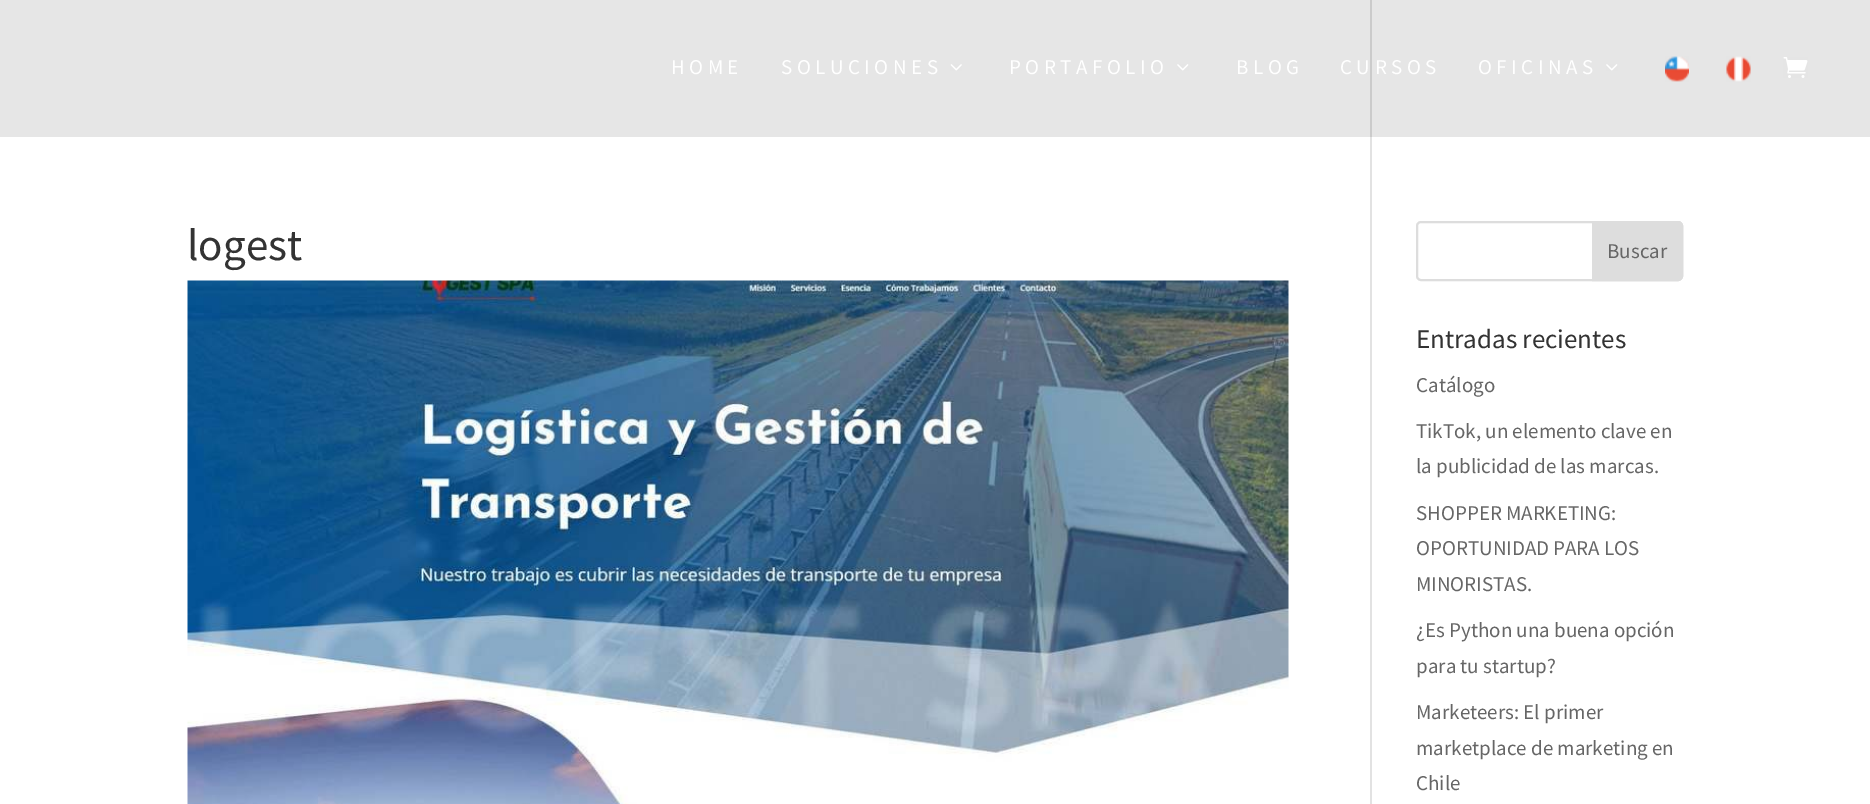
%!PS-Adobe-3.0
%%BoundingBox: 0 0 1870 804
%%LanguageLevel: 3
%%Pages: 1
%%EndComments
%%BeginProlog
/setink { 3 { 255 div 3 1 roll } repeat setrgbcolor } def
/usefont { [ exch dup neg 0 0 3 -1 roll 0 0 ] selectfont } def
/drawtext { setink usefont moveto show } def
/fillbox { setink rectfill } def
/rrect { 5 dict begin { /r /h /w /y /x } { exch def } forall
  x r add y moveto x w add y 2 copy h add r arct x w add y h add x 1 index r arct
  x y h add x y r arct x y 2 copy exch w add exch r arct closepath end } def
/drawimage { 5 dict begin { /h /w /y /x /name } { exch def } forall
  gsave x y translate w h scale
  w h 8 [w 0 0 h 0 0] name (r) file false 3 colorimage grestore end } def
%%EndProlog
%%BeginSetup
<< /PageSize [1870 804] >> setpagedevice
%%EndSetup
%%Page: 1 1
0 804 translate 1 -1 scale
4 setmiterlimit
0 0 1870 804 255 255 255 fillbox
0 0 1870 137 230 230 230 fillbox
/SourceSansPro-Regular 21 usefont
255 255 255 setink
671 74 moveto 4.5 0 (HOME) ashow
781 74 moveto 4.5 0 (SOLUCIONES) ashow
(assets/img1.rgb) 950 64 12 7 drawimage
1009 74 moveto 4.5 0 (PORTAFOLIO) ashow
(assets/img2.rgb) 1177 64 12 7 drawimage
1236 74 moveto 4.5 0 (BLOG) ashow
1370 0 2 137 203 203 203 fillbox
255 255 255 setink
1340 74 moveto 4.5 0 (CURSOS) ashow
1478 74 moveto 4.5 0 (OFICINAS) ashow
(assets/img2.rgb) 1606 64 12 7 drawimage
(assets/img3.rgb) 1665 56 24 26 drawimage
(assets/img4.rgb) 1726 56 25 26 drawimage
(assets/img5.rgb) 1783 57 25 21 drawimage
1370 137 2 667 226 226 226 fillbox
(logest) 187 260 /SourceSansPro-Regular 45 51 51 51 drawtext
(assets/img6.rgb) 187 280 1102 524 drawimage
221 221 221 setink
2 setlinewidth
1417 222 265 58 4 rrect stroke
1593 222 moveto 1678 222 lineto 1680 222 1682 224 1682 226 curveto 1682 276 lineto 1682 278 1680 280 1678 280 curveto 1593 280 lineto closepath gsave fill grestore
stroke
(Buscar) 1607 258 /SourceSansPro-Regular 21 102 102 102 drawtext
(Entradas recientes) 1416 348 /SourceSansPro-Regular 27 51 51 51 drawtext
(Catálogo) 1416 392 /SourceSansPro-Regular 21 102 102 102 drawtext
(TikTok, un elemento clave en) 1416 438 /SourceSansPro-Regular 21 102 102 102 drawtext
(la publicidad de las marcas.) 1416 473 /SourceSansPro-Regular 21 102 102 102 drawtext
(SHOPPER MARKETING:) 1416 520 /SourceSansPro-Regular 21 102 102 102 drawtext
(OPORTUNIDAD PARA LOS) 1416 555 /SourceSansPro-Regular 21 102 102 102 drawtext
(MINORISTAS.) 1416 591 /SourceSansPro-Regular 21 102 102 102 drawtext
(¿Es Python una buena opción) 1416 637 /SourceSansPro-Regular 21 102 102 102 drawtext
(para tu startup?) 1416 673 /SourceSansPro-Regular 21 102 102 102 drawtext
(Marketeers: El primer) 1416 719 /SourceSansPro-Regular 21 102 102 102 drawtext
(marketplace de marketing en) 1416 755 /SourceSansPro-Regular 21 102 102 102 drawtext
(Chile) 1416 790 /SourceSansPro-Regular 21 102 102 102 drawtext
showpage
%%EOF
